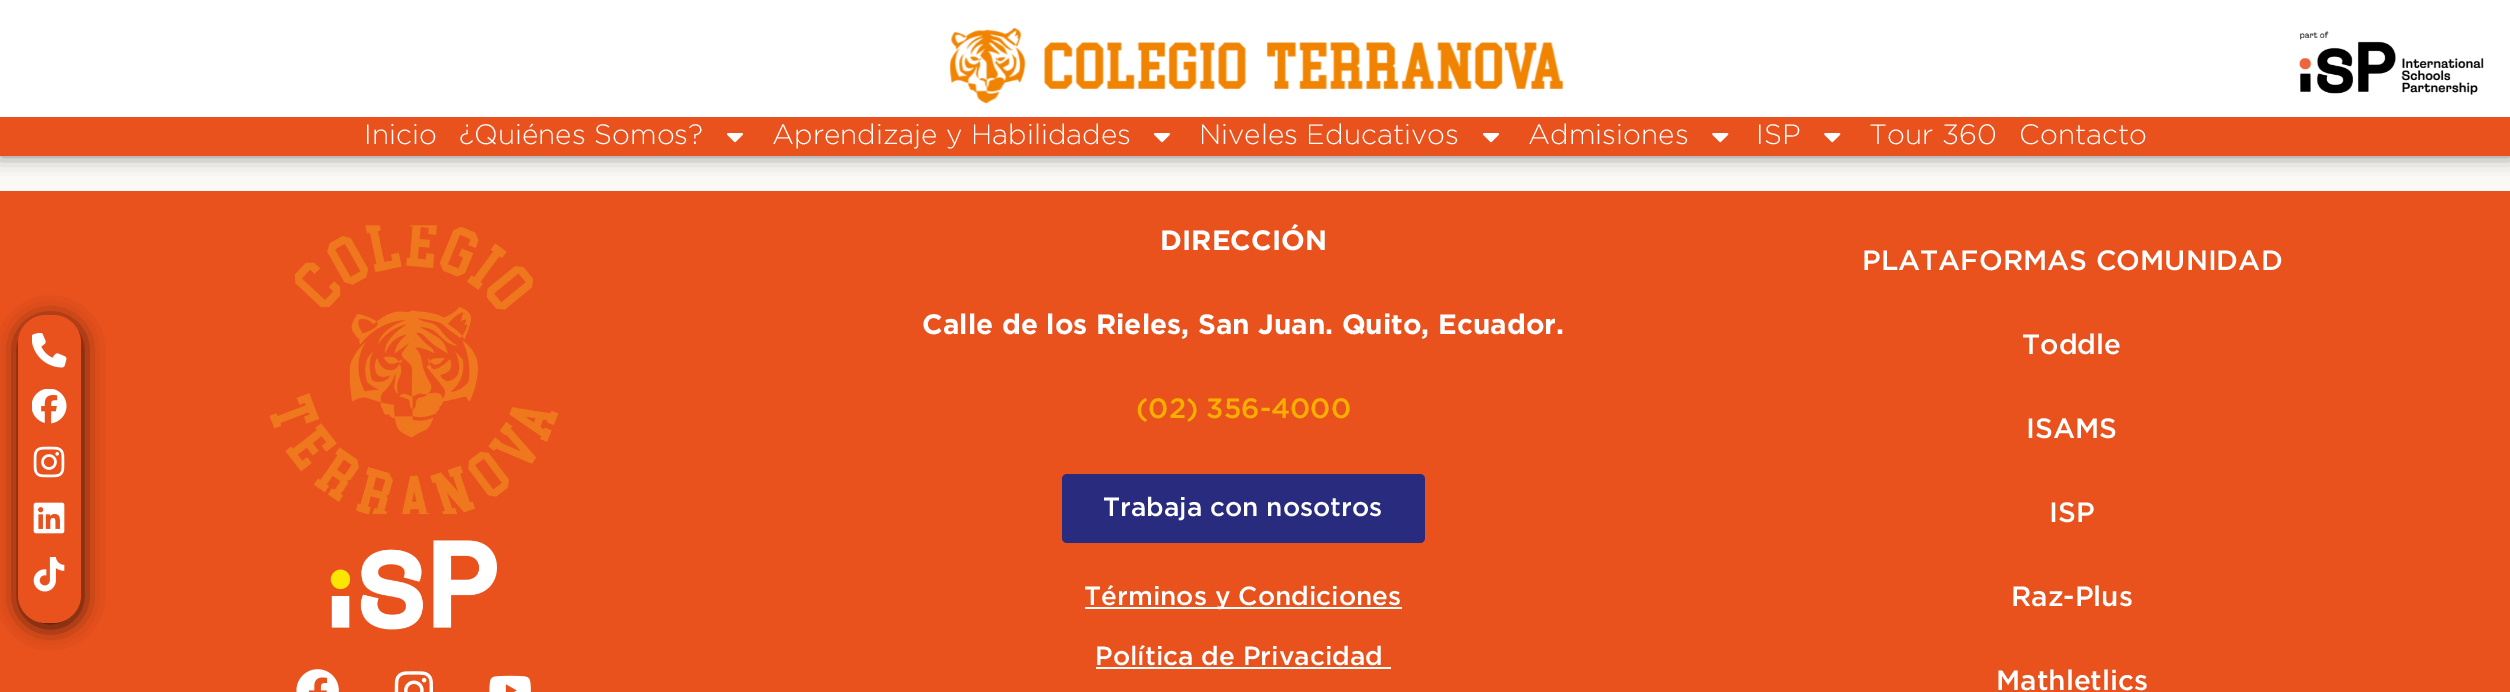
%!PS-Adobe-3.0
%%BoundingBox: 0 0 2510 692
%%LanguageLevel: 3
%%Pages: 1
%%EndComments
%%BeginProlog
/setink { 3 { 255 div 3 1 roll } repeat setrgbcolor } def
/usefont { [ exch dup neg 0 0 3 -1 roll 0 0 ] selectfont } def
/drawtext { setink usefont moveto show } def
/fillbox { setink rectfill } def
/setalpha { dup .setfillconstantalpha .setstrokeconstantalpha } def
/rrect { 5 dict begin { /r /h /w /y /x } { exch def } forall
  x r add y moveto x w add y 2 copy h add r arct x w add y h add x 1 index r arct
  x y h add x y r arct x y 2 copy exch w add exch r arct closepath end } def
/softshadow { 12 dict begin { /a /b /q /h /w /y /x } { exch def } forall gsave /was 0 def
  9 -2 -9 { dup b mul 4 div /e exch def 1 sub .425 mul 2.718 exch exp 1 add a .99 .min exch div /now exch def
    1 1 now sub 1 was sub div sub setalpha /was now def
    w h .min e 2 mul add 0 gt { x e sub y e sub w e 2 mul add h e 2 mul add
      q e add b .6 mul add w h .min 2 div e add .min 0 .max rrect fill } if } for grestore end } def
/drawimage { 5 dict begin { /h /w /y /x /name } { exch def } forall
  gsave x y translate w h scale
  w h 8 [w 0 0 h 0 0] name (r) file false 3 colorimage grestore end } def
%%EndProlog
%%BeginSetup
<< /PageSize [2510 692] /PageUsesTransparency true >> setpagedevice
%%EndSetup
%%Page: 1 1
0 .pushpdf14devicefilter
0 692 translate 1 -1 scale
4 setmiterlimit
0 0 2510 692 250 249 246 fillbox
0 0 0 setink
0 0 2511 156 0 9 0.5 softshadow
0 0 2510 117 255 255 255 fillbox
(assets/img1.rgb) 950 28 613 76 drawimage
(assets/img2.rgb) 2299 31 185 64 drawimage
0 117 2510 39 233 81 29 fillbox
(Inicio) 364 144 /Gotham-Light 28 255 255 255 drawtext
(¿Quiénes Somos?) 459 144 /Gotham-Light 28 255 255 255 drawtext
(assets/img3.rgb) 726 133 18 10 drawimage
(Aprendizaje y Habilidades) 772 144 /Gotham-Light 28 255 255 255 drawtext
(assets/img3.rgb) 1153 133 18 10 drawimage
(Niveles Educativos) 1199 144 /Gotham-Light 28 255 255 255 drawtext
(assets/img3.rgb) 1482 133 18 10 drawimage
(Admisiones) 1528 144 /Gotham-Light 28 255 255 255 drawtext
(assets/img4.rgb) 1712 133 17 10 drawimage
(ISP) 1756 144 /Gotham-Light 28 255 255 255 drawtext
(assets/img4.rgb) 1824 133 17 10 drawimage
(Tour 360) 1869 144 /Gotham-Light 28 255 255 255 drawtext
(Contacto) 2019 144 /Gotham-Light 28 255 255 255 drawtext
0 191 2510 501 233 81 29 fillbox
0 0 0 setink
19 319 63 308 28 10.5 0.8 softshadow
233 81 29 setink
18 315 63 308 28 rrect fill
(assets/img5.rgb) 32 333 35 35 drawimage
(assets/img6.rgb) 32 389 35 35 drawimage
(assets/img7.rgb) 33 446 32 32 drawimage
(assets/img8.rgb) 33 502 32 32 drawimage
(assets/img9.rgb) 33 557 32 35 drawimage
(assets/img10.rgb) 269 225 290 289 drawimage
(assets/img11.rgb) 330 540 167 90 drawimage
(assets/img12.rgb) 296 669 43 23 drawimage
(assets/img13.rgb) 394 671 40 21 drawimage
(assets/img14.rgb) 489 675 42 17 drawimage
(DIRECCIÓN) 1160 250 /Gotham-Bold 28 255 255 255 drawtext
(Calle de los Rieles, San Juan. Quito, Ecuador.) 922 334 /Gotham-Bold 28 255 255 255 drawtext
(\(02\) 356-4000) 1136 418 /Gotham-Medium 28 249 174 0 drawtext
41 43 126 setink
1062 474 363 69 5 rrect fill
(Trabaja con nosotros) 1103 516 /Gotham-Medium 26.25 255 255 255 drawtext
1085 607 317 2 255 255 255 fillbox
(Términos y Condiciones) 1084 605 /Gotham-Medium 26.25 255 255 255 drawtext
(Política de Privacidad) 1095 665 /Gotham-Medium 26.25 255 255 255 drawtext
1096 667 295 2 255 255 255 fillbox
(PLATAFORMAS COMUNIDAD) 1862 270 /Gotham-Medium 28 255 255 255 drawtext
(Toddle) 2022 354 /Gotham-Medium 28 255 255 255 drawtext
(ISAMS) 2026 438 /Gotham-Medium 28 255 255 255 drawtext
(ISP) 2049 522 /Gotham-Medium 28 255 255 255 drawtext
(Raz-Plus) 2011 606 /Gotham-Medium 28 255 255 255 drawtext
(Mathletlics) 1996 690 /Gotham-Medium 28 255 255 255 drawtext
.poppdf14devicefilter showpage
%%EOF
